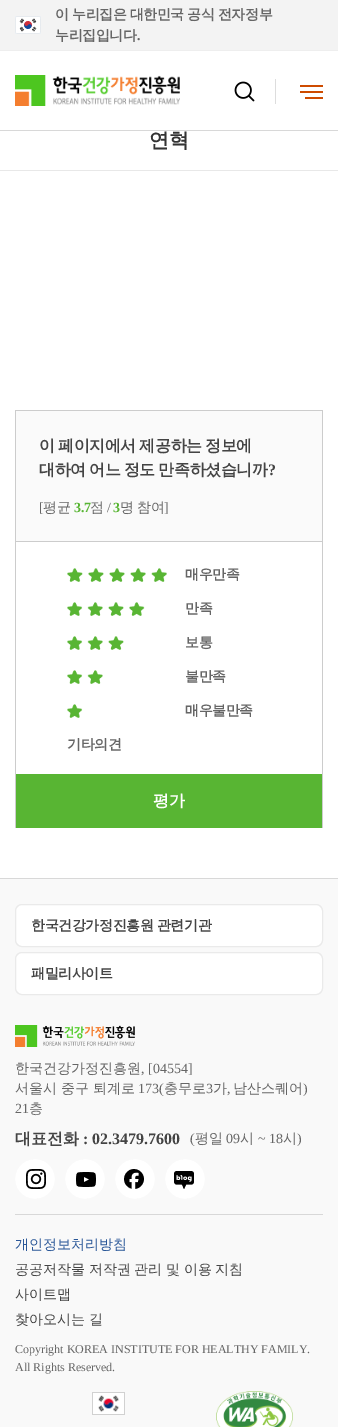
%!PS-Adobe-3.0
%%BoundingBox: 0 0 338 1427
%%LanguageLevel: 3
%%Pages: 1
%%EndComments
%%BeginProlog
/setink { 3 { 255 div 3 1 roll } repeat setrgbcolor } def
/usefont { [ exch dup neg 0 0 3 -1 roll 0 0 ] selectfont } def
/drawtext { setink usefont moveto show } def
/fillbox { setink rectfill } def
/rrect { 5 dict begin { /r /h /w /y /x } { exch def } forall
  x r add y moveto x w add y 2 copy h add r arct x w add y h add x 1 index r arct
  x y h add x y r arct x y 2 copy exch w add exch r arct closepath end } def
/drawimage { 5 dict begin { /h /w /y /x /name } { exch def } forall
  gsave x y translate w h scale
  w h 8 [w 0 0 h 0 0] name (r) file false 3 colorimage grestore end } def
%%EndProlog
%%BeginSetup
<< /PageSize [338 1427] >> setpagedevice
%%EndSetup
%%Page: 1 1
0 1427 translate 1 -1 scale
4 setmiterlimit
0 0 338 1427 255 255 255 fillbox
0 0 338 50 243 243 243 fillbox
0 50 338 1 238 238 238 fillbox
(assets/img1.rgb) 15 16 26 18 drawimage
/WenQuanYiZenHei-Bold 14 usefont
102 102 102 setink
55 19 moveto -0.5 0 32 -0.4 0 (이 누리집은 대한민국 공식 전자정부) awidthshow
55 40 moveto -0.4 0 (누리집입니다) ashow
/LiberationSerif-Bold 14 usefont
137 40 moveto -0.4 0 (.) ashow
0 130 338 1 216 216 216 fillbox
(assets/img2.rgb) 15 75 165 31 drawimage
(assets/img3.rgb) 234 81 21 21 drawimage
275 79 1 25 221 221 221 fillbox
(assets/img4.rgb) 300 85 23 14 drawimage
0 170 338 1 232 232 232 fillbox
/WenQuanYiZenHei-Bold 20 usefont
51 51 51 setink
149 147 moveto -0.4 0 (연혁) ashow
15 410 308 1 204 204 204 fillbox
322 410 1 418 204 204 204 fillbox
15 410 1 418 204 204 204 fillbox
16 411 306 130 250 250 250 fillbox
16 541 306 1 204 204 204 fillbox
/WenQuanYiZenHei-Bold 16 usefont
68 68 68 setink
39 451 moveto -1 0 32 -0.4 0 (이 페이지에서 제공하는 정보에) awidthshow
39 475 moveto -1 0 32 -0.4 0 (대하여 어느 정도 만족하셨습니까) awidthshow
/LiberationSerif-Bold 16 usefont
268 475 moveto -0.4 0 (?) ashow
/LiberationSerif-Regular 14 usefont
102 102 102 setink
39 512 moveto -0.4 0 ([) ashow
/WenQuanYiZenHei-Medium 14 usefont
43 512 moveto -0.4 0 (평균) ashow
/LiberationSerif-Bold 14 usefont
88 181 51 setink
74 512 moveto -0.4 0 (3.7) ashow
/WenQuanYiZenHei-Medium 14 usefont
102 102 102 setink
90 512 moveto -0.4 0 (점) ashow
/LiberationSerif-Regular 14 usefont
107 512 moveto -0.4 0 (/) ashow
/LiberationSerif-Bold 14 usefont
88 181 51 setink
113 512 moveto -0.4 0 (3) ashow
/WenQuanYiZenHei-Medium 14 usefont
102 102 102 setink
120 512 moveto -0.5 0 32 -0.4 0 (명 참여) awidthshow
/LiberationSerif-Regular 14 usefont
164 512 moveto -0.4 0 (]) ashow
(assets/img5.rgb) 67 568 100 14 drawimage
/WenQuanYiZenHei-Bold 14 usefont
185 579 moveto -0.4 0 (매우만족) ashow
(assets/img6.rgb) 67 602 78 14 drawimage
185 613 moveto -0.4 0 (만족) ashow
(assets/img7.rgb) 67 636 57 14 drawimage
185 647 moveto -0.4 0 (보통) ashow
(assets/img8.rgb) 67 670 36 14 drawimage
185 681 moveto -0.4 0 (불만족) ashow
(assets/img9.rgb) 67 704 16 14 drawimage
185 715 moveto -0.4 0 (매우불만족) ashow
67 749 moveto -0.4 0 (기타의견) ashow
16 774 306 54 88 181 51 fillbox
/WenQuanYiZenHei-Bold 16 usefont
255 255 255 setink
153 806 moveto -0.4 0 (평가) ashow
0 879 338 548 249 249 249 fillbox
0 878 338 1 216 216 216 fillbox
255 255 255 setink
15.5 904.5 307 42 6.5 rrect gsave fill grestore
234 234 234 setink
stroke
/WenQuanYiZenHei-Bold 14 usefont
68 68 68 setink
31 930 moveto -0.5 0 32 -0.4 0 (한국건강가정진흥원 관련기관) awidthshow
255 255 255 setink
15.5 952.5 307 42 6.5 rrect gsave fill grestore
234 234 234 setink
stroke
68 68 68 setink
31 978 moveto -0.4 0 (패밀리사이트) ashow
(assets/img10.rgb) 15 1025 120 22 drawimage
15 1214 308 1 216 216 216 fillbox
(한국건강가정진흥원) 15 1073 /WenQuanYiZenHei-Medium 14 102 102 102 drawtext
(, [04554]) 141 1073 /LiberationSerif-Regular 14 102 102 102 drawtext
(서울시 중구 퇴계로) 15 1093 /WenQuanYiZenHei-Medium 14 102 102 102 drawtext
(173\() 138 1093 /LiberationSerif-Regular 14 102 102 102 drawtext
(충무로) 164 1093 /WenQuanYiZenHei-Medium 14 102 102 102 drawtext
(3) 206 1093 /LiberationSerif-Regular 14 102 102 102 drawtext
(가) 213 1093 /WenQuanYiZenHei-Medium 14 102 102 102 drawtext
(,) 227 1093 /LiberationSerif-Regular 14 102 102 102 drawtext
(남산스퀘어) 233 1093 /WenQuanYiZenHei-Medium 14 102 102 102 drawtext
(\)) 303 1093 /LiberationSerif-Regular 14 102 102 102 drawtext
(21) 15 1113 /LiberationSerif-Regular 14 102 102 102 drawtext
(층) 29 1113 /WenQuanYiZenHei-Medium 14 102 102 102 drawtext
(대표전화) 15 1144 /WenQuanYiZenHei-Bold 16 68 68 68 drawtext
(: 02.3479.7600) 83 1144 /LiberationSerif-Bold 16 68 68 68 drawtext
(\() 190 1143 /LiberationSerif-Regular 14 102 102 102 drawtext
(평일) 195 1143 /WenQuanYiZenHei-Medium 14 102 102 102 drawtext
(09) 226 1143 /LiberationSerif-Regular 14 102 102 102 drawtext
(시) 240 1143 /WenQuanYiZenHei-Medium 14 102 102 102 drawtext
(~ 18) 258 1143 /LiberationSerif-Regular 14 102 102 102 drawtext
(시) 283 1143 /WenQuanYiZenHei-Medium 14 102 102 102 drawtext
(\)) 297 1143 /LiberationSerif-Regular 14 102 102 102 drawtext
(assets/img11.rgb) 15 1159 40 40 drawimage
(assets/img12.rgb) 65 1159 40 40 drawimage
(assets/img13.rgb) 115 1159 40 40 drawimage
(assets/img14.rgb) 165 1159 40 40 drawimage
(개인정보처리방침) 15 1249 /WenQuanYiZenHei-Medium 14 42 87 152 drawtext
68 68 68 setink
15 1274 moveto -0.5 0 32 (공공저작물 저작권 관리 및 이용 지침) widthshow
(사이트맵) 15 1299 /WenQuanYiZenHei-Medium 14 68 68 68 drawtext
15 1324 moveto -0.5 0 32 (찾아오시는 길) widthshow
(Copyright KOREA INSTITUTE FOR HEALTHY FAMILY.) 15 1353 /LiberationSerif-Regular 12 102 102 102 drawtext
(All Rights Reserved.) 15 1371 /LiberationSerif-Regular 12 102 102 102 drawtext
(assets/img15.rgb) 92 1392 33 23 drawimage
(assets/img16.rgb) 216 1391 77 36 drawimage
showpage
%%EOF
